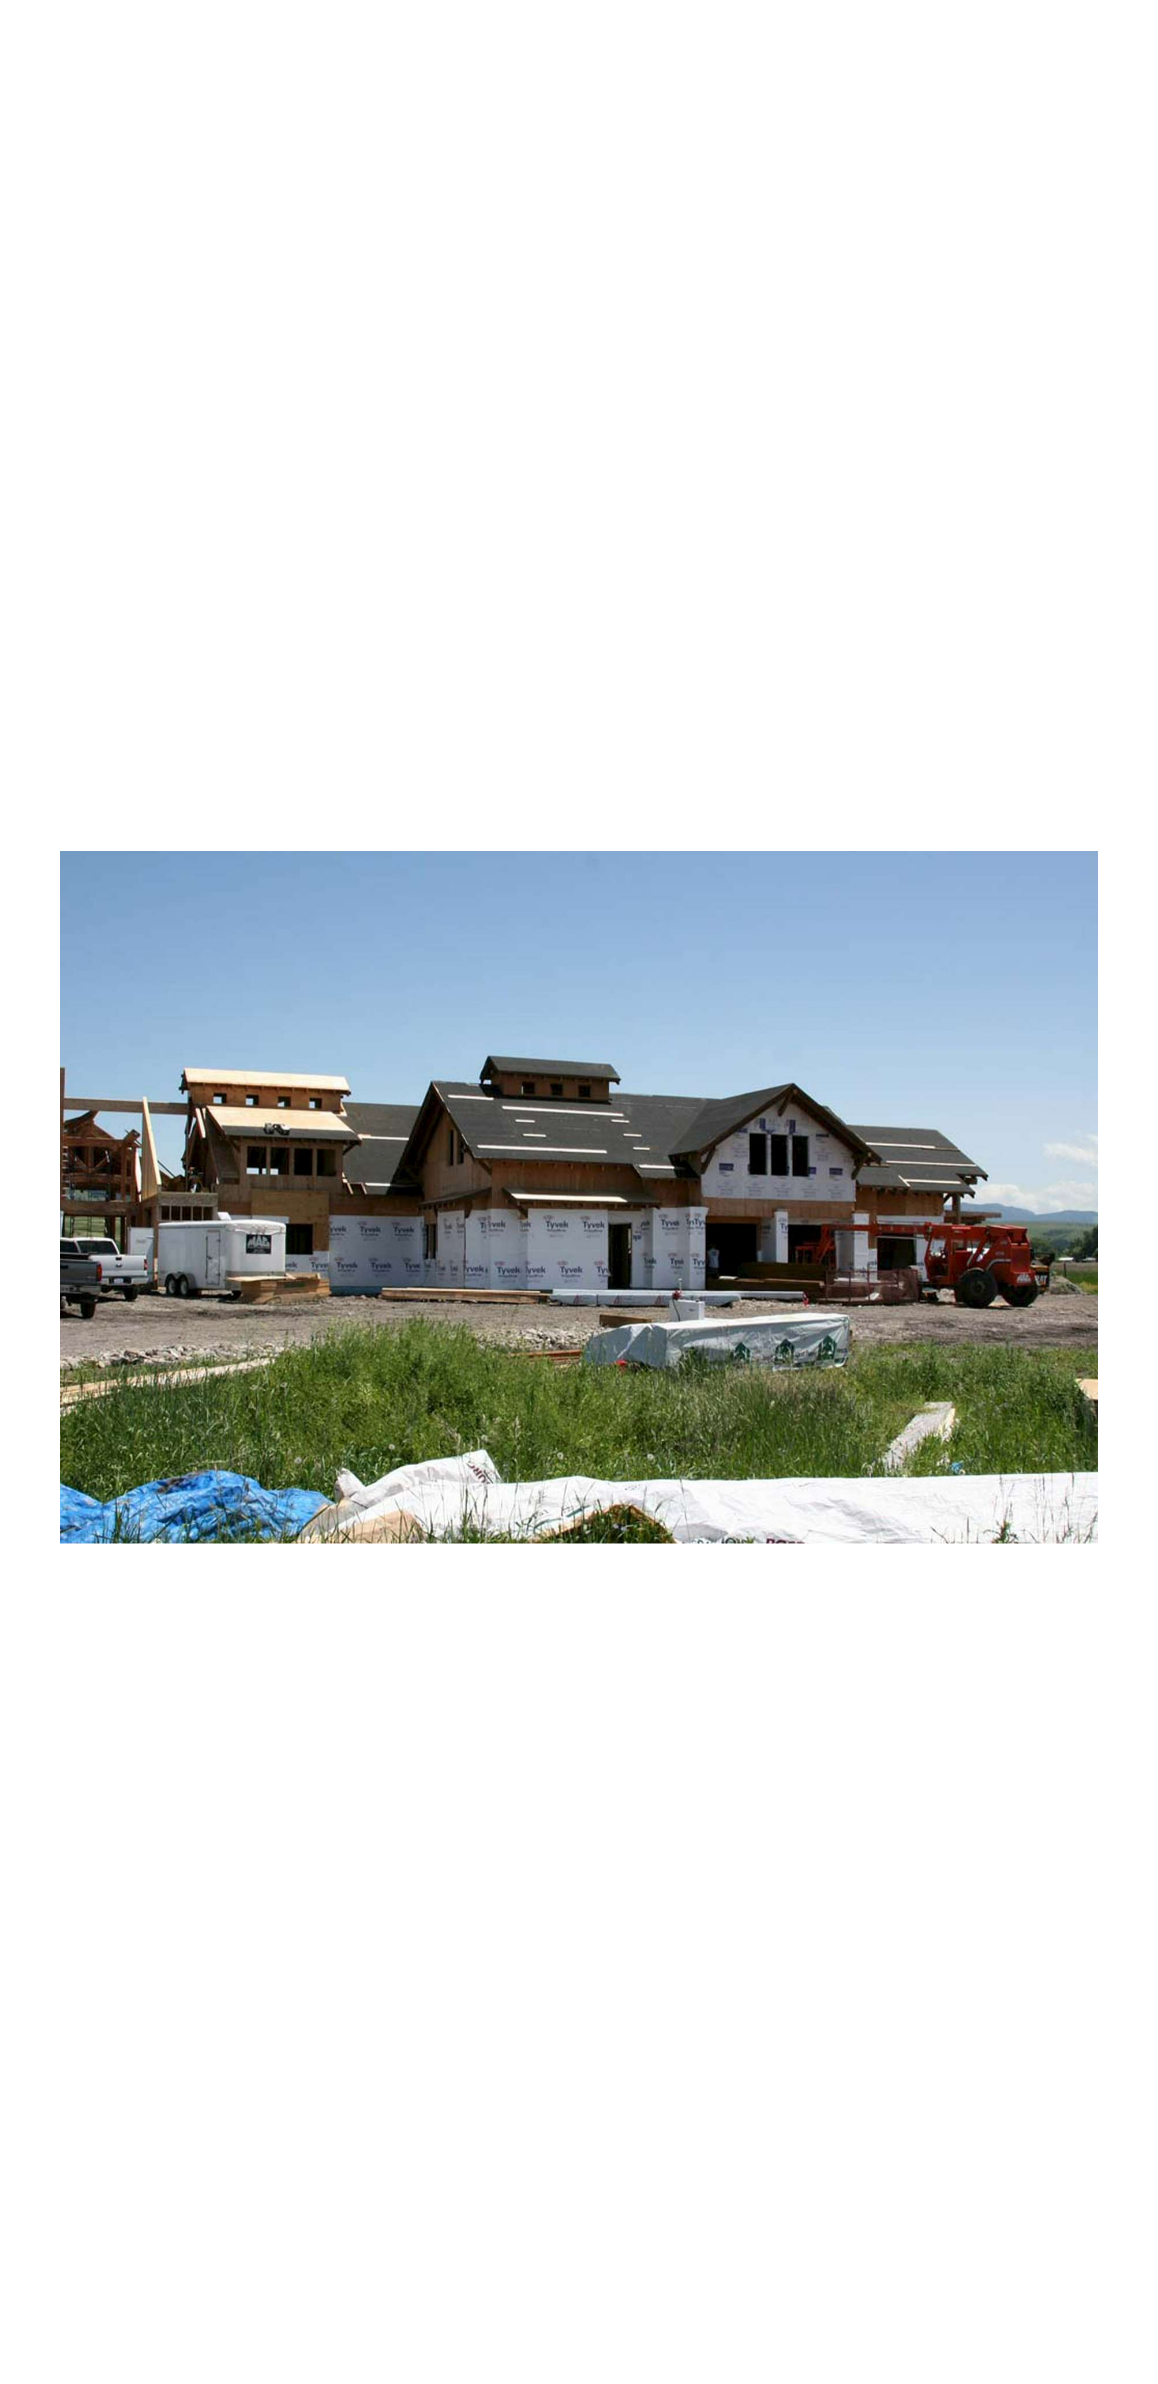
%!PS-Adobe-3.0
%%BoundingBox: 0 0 1158 2384
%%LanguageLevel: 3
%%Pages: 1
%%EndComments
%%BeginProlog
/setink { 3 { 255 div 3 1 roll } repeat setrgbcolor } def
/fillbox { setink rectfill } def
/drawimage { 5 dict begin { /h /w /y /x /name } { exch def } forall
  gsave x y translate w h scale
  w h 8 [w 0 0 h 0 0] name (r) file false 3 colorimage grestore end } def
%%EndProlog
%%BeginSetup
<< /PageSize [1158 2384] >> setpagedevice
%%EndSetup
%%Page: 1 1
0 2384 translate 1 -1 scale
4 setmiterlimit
0 0 1158 2384 255 255 255 fillbox
(assets/img1.rgb) 60 851 1038 693 drawimage
showpage
%%EOF
